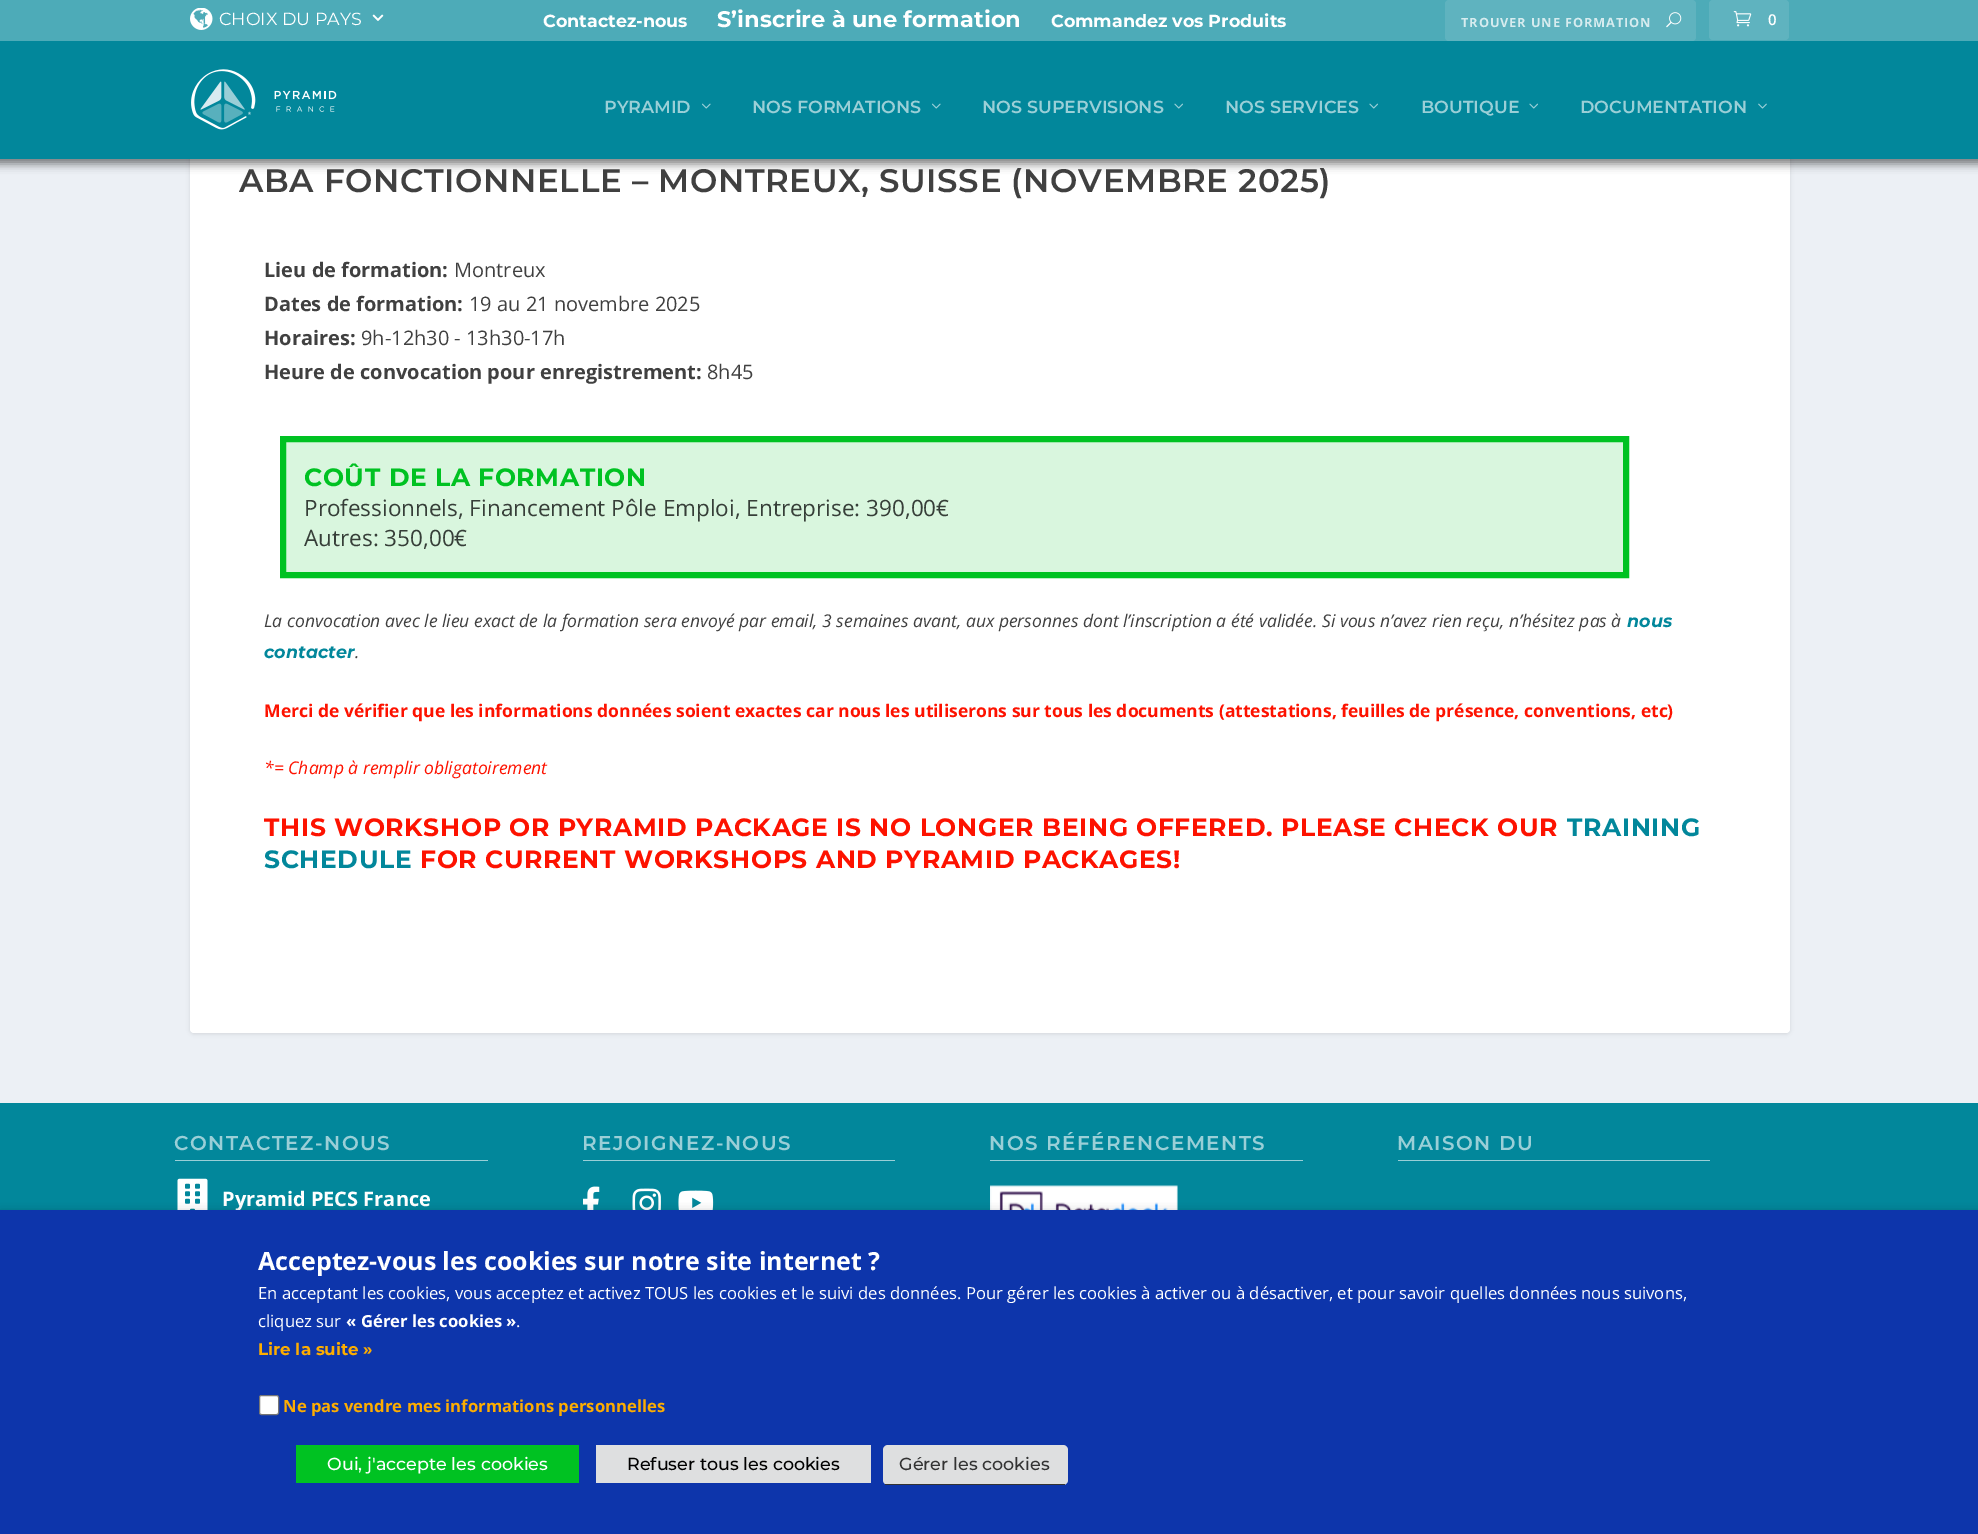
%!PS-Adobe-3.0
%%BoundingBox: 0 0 1978 1534
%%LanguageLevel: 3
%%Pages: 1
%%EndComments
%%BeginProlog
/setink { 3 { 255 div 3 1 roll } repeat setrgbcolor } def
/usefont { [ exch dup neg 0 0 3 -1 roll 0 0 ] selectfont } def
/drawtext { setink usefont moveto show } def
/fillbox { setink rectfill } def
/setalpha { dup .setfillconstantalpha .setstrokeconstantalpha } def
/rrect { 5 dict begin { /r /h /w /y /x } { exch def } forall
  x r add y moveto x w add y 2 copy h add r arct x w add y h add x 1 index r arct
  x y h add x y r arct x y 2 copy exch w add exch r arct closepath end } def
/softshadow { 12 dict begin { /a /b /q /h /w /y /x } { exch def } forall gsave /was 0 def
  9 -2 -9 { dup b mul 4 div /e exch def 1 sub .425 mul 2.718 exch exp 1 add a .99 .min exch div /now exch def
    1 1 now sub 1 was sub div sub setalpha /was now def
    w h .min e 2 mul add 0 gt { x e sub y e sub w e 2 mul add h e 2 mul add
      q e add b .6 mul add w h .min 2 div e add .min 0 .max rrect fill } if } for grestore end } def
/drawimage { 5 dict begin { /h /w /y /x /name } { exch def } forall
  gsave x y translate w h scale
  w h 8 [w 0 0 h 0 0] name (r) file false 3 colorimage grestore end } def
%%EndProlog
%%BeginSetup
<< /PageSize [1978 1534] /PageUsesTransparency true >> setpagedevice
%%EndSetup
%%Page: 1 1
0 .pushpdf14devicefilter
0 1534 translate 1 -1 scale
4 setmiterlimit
0 0 1978 1534 236 240 245 fillbox
0 0 0 setink
190 68 1600 966 4 2 0.1 softshadow
255 255 255 setink
190 66 1600 967 4 rrect fill
0 0 0 setink
-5 35 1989 129 0 4.5 0.5 softshadow
0 0 1978 41 77 171 184 fillbox
(assets/img1.rgb) 190 8 23 22 drawimage
(CHOIX DU PAYS) 219 25 /Montserrat-Regular 17.5 255 255 255 drawtext
(assets/img2.rgb) 372 14 12 7 drawimage
(Contactez-nous) 543 27 /Montserrat-Bold 17.5 255 255 255 drawtext
(S’inscrire à une formation) 717 27 /Montserrat-Bold 22.5 255 255 255 drawtext
(Commandez vos Produits) 1051 27 /Montserrat-Bold 17.5 255 255 255 drawtext
95 179 191 setink
1445 0 251 41 4 rrect fill
/OpenSans-Bold 12.75 usefont
215 236 239 setink
1461 27 moveto 0.9 0 (TROUVER UNE FORMATION) ashow
(assets/img3.rgb) 1666 12 16 16 drawimage
95 179 191 setink
1709 0 80 40 4 rrect fill
(assets/img4.rgb) 1733 11 19 16 drawimage
(0) 1768 25 /OpenSans-SemiBold 15 255 255 255 drawtext
0 41 1978 118 2 135 155 fillbox
(assets/img5.rgb) 191 69 146 61 drawimage
(PYRAMID) 604 113 /Montserrat-SemiBold 17.5 154 207 215 drawtext
(assets/img6.rgb) 702 103 9 6 drawimage
(NOS FORMATIONS) 752 113 /Montserrat-SemiBold 17.5 154 207 215 drawtext
(assets/img6.rgb) 932 103 9 6 drawimage
(NOS SUPERVISIONS) 982 113 /Montserrat-SemiBold 17.5 154 207 215 drawtext
(assets/img7.rgb) 1174 103 9 6 drawimage
(NOS SERVICES) 1225 113 /Montserrat-SemiBold 17.5 154 207 215 drawtext
(assets/img7.rgb) 1369 103 9 6 drawimage
(BOUTIQUE) 1421 113 /Montserrat-SemiBold 17.5 154 207 215 drawtext
(assets/img7.rgb) 1529 103 9 6 drawimage
(DOCUMENTATION) 1580 113 /Montserrat-SemiBold 17.5 154 207 215 drawtext
(assets/img8.rgb) 1758 103 9 6 drawimage
/Montserrat-SemiBold 32.5 usefont
64 64 64 setink
239 192 moveto 0.62 0 (ABA FONCTIONNELLE – MONTREUX, SUISSE \(NOVEMBRE 2025\)) ashow
(Lieu de formation:) 264 277 /OpenSans-Bold 20 64 64 64 drawtext
(Montreux) 454 277 /OpenSans-Regular 20 64 64 64 drawtext
(Dates de formation:) 264 311 /OpenSans-Bold 20 64 64 64 drawtext
(19 au 21 novembre 2025) 469 311 /OpenSans-Regular 20 64 64 64 drawtext
(Horaires:) 264 345 /OpenSans-Bold 20 64 64 64 drawtext
(9h-12h30 - 13h30-17h) 361 345 /OpenSans-Regular 20 64 64 64 drawtext
(Heure de convocation pour enregistrement:) 264 379 /OpenSans-Bold 20 64 64 64 drawtext
(8h45) 707 379 /OpenSans-Regular 20 64 64 64 drawtext
217 246 222 setink
283 439 moveto 1626 439 lineto 1626 575 lineto 283 575 lineto closepath gsave fill grestore
0 194 34 setink
6 setlinewidth
stroke
/Montserrat-Bold 25 usefont
304 486 moveto 0.62 0 (COÛT DE LA FORMATION) ashow
(Professionnels, Financement Pôle Emploi, Entreprise: 390,00€) 304 516 /OpenSans-Regular 22.5 54 62 56 drawtext
(Autres: 350,00€) 304 546 /OpenSans-Regular 22.5 54 62 56 drawtext
(La convocation avec le lieu exact de la formation sera envoyé par email, 3 semaines avant, aux personnes dont l’inscription a été validée. Si vous n’avez rien reçu, n’hésitez pas à) 264 627 /OpenSans-Italic 17.5 64 64 64 drawtext
(nous) 1627 627 /Montserrat-BoldItalic 17.5 2 135 155 drawtext
(contacter) 264 658 /Montserrat-BoldItalic 17.5 2 135 155 drawtext
(.) 355 658 /OpenSans-Italic 17.5 64 64 64 drawtext
(Merci de vérifier que les informations données soient exactes car nous les utiliserons sur tous les documents \(attestations, feuilles de présence, conventions, etc\)) 264 717 /OpenSans-Bold 17.5 253 18 0 drawtext
(*= Champ à remplir obligatoirement) 264 774 /OpenSans-Italic 17.5 253 18 0 drawtext
/Montserrat-Bold 25 usefont
264 836 moveto 0.62 0 (THIS WORKSHOP OR PYRAMID PACKAGE IS NO LONGER BEING OFFERED. PLEASE CHECK OUR) ashow
2 135 155 setink
1567 836 moveto 0.62 0 (TRAINING) ashow
264 868 moveto 0.62 0 (SCHEDULE) ashow
253 18 0 setink
420 868 moveto 0.62 0 (FOR CURRENT WORKSHOPS AND PYRAMID PACKAGES!) ashow
0 1103 1978 107 2 135 155 fillbox
175 1160 313 1 154 207 215 fillbox
/Montserrat-SemiBold 20 usefont
174 1150 moveto 1.5 0 (CONTACTEZ-NOUS) ashow
(assets/img9.rgb) 177 1178 31 32 drawimage
(Pyramid PECS France) 222 1206 /OpenSans-Bold 20 255 255 255 drawtext
583 1160 312 1 154 207 215 fillbox
/Montserrat-SemiBold 20 usefont
582 1150 moveto 1.5 0 (REJOIGNEZ-NOUS) ashow
(assets/img10.rgb) 583 1186 17 24 drawimage
(assets/img11.rgb) 632 1188 29 22 drawimage
(assets/img12.rgb) 678 1190 36 20 drawimage
990 1160 313 1 154 207 215 fillbox
989 1150 moveto 1.5 0 (NOS RÉFÉRENCEMENTS) ashow
(assets/img13.rgb) 990 1185 188 25 drawimage
1398 1160 312 1 154 207 215 fillbox
1397 1150 moveto 1.5 0 (MAISON DU) ashow
0 0 0 setink
0 1216 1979 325 0 6 0.5 softshadow
0 1210 1978 324 13 53 171 fillbox
(Acceptez-vous les cookies sur notre site internet ?) 258 1270 /OpenSans-Bold 25 255 255 255 drawtext
(En acceptant les cookies, vous acceptez et activez TOUS les cookies et le suivi des données. Pour gérer les cookies à activer ou à désactiver, et pour savoir quelles données nous suivons,) 258 1299 /OpenSans-Regular 16.67 255 255 255 drawtext
(cliquez sur) 258 1327 /OpenSans-Regular 16.67 255 255 255 drawtext
(« Gérer les cookies ») 346 1327 /OpenSans-Bold 16.67 255 255 255 drawtext
(.) 516 1327 /OpenSans-Regular 16.67 255 255 255 drawtext
(Lire la suite ») 258 1355 /Montserrat-Bold 16.67 253 173 0 drawtext
255 255 255 setink
259.5 1395.5 19 19 2 rrect gsave fill grestore
118 118 118 setink
1 setlinewidth
stroke
(Ne pas vendre mes informations personnelles) 283 1412 /OpenSans-Bold 16.67 253 173 0 drawtext
296 1445 283 38 0 194 34 fillbox
(Oui, j'accepte les cookies) 327 1470 /Montserrat-Medium 17.5 255 255 255 drawtext
596 1445 275 38 222 223 224 fillbox
(Refuser tous les cookies) 627 1470 /Montserrat-Medium 17.5 0 0 0 drawtext
222 223 224 setink
883 1445 185 40 5 rrect fill
885 1484 180 1 51 51 51 fillbox
(Gérer les cookies) 899 1470 /Montserrat-Medium 17.5 51 51 51 drawtext
.poppdf14devicefilter showpage
%%EOF
